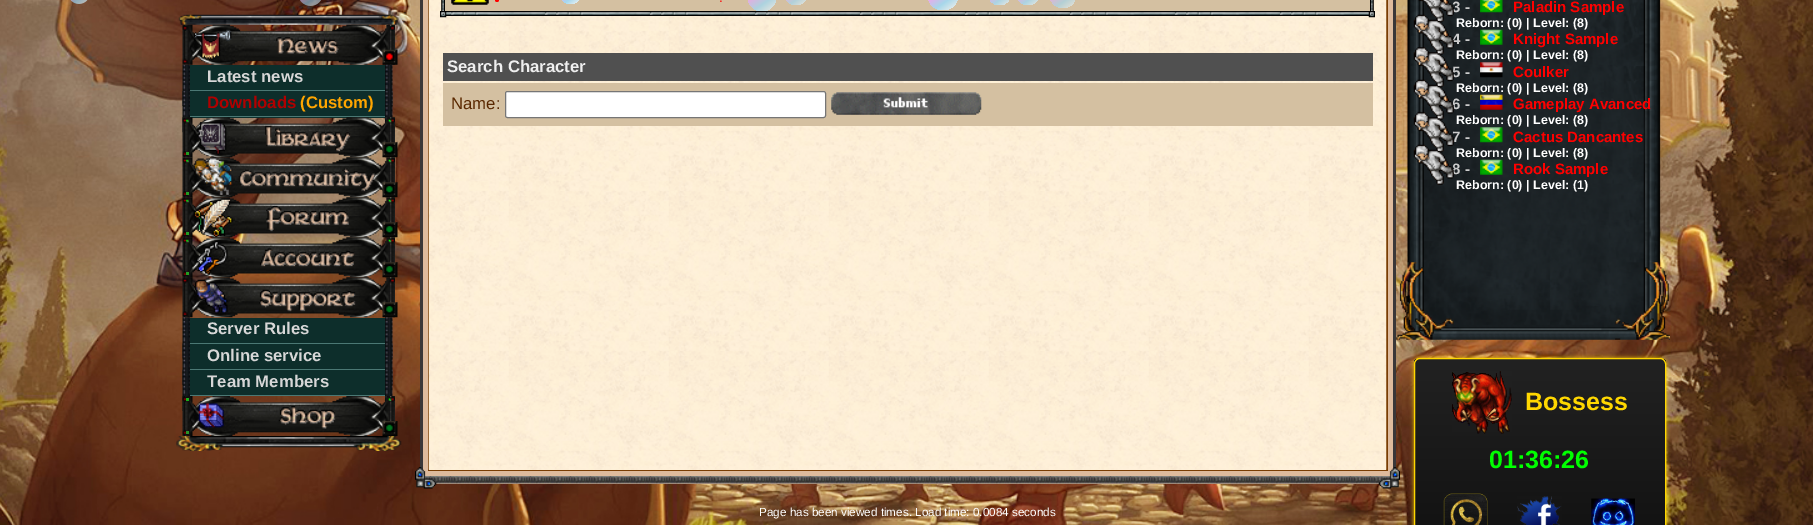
%!PS-Adobe-3.0
%%BoundingBox: 0 0 1813 525
%%LanguageLevel: 3
%%Pages: 1
%%EndComments
%%BeginProlog
/setink { 3 { 255 div 3 1 roll } repeat setrgbcolor } def
/usefont { [ exch dup neg 0 0 3 -1 roll 0 0 ] selectfont } def
/drawtext { setink usefont moveto show } def
/fillbox { setink rectfill } def
/setalpha { dup .setfillconstantalpha .setstrokeconstantalpha } def
/disc { newpath 0 360 arc closepath } def
/rrect { 5 dict begin { /r /h /w /y /x } { exch def } forall
  x r add y moveto x w add y 2 copy h add r arct x w add y h add x 1 index r arct
  x y h add x y r arct x y 2 copy exch w add exch r arct closepath end } def
/softshadow { 12 dict begin { /a /b /q /h /w /y /x } { exch def } forall gsave /was 0 def
  9 -2 -9 { dup b mul 4 div /e exch def 1 sub .425 mul 2.718 exch exp 1 add a .99 .min exch div /now exch def
    1 1 now sub 1 was sub div sub setalpha /was now def
    w h .min e 2 mul add 0 gt { x e sub y e sub w e 2 mul add h e 2 mul add
      q e add b .6 mul add w h .min 2 div e add .min 0 .max rrect fill } if } for grestore end } def
/drawimage { 5 dict begin { /h /w /y /x /name } { exch def } forall
  gsave x y translate w h scale
  w h 8 [w 0 0 h 0 0] name (r) file false 3 colorimage grestore end } def
%%EndProlog
%%BeginSetup
<< /PageSize [1813 525] /PageUsesTransparency true >> setpagedevice
%%EndSetup
%%Page: 1 1
0 .pushpdf14devicefilter
0 525 translate 1 -1 scale
4 setmiterlimit
0 0 1813 525 255 255 255 fillbox
(assets/img1.rgb) 0 0 1813 525 drawimage
423 0 970 484 222 187 157 fillbox
428 0 960 471 121 61 3 fillbox
(assets/img45.rgb) 428 0 959 470 drawimage
441 0 933 11 212 192 161 fillbox
0.83 setalpha
gsave 560 -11 21 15 10.5 rrect clip newpath
<< /ShadingType 2 /ColorSpace /DeviceRGB /Coords [562 -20 579 5] /Extend [true true] /Function << /FunctionType 3 /Domain [0 1] /Functions [<< /FunctionType 2 /Domain [0 1] /C0 [1 0.8 1] /C1 [1 0.6 1] /N 1 >> << /FunctionType 2 /Domain [0 1] /C0 [1 0.6 1] /C1 [0.6 0.867 1] /N 1 >> << /FunctionType 2 /Domain [0 1] /C0 [0.6 0.867 1] /C1 [1 1 1] /N 1 >>] /Bounds [0.33 0.67] /Encode [0 1 0 1 0 1] >> >> shfill grestore
1 setalpha
gsave 748 -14 28 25 14 rrect clip newpath
<< /ShadingType 2 /ColorSpace /DeviceRGB /Coords [750 -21 774 13] /Extend [true true] /Function << /FunctionType 3 /Domain [0 1] /Functions [<< /FunctionType 2 /Domain [0 1] /C0 [0.941 0.784 0.875] /C1 [0.941 0.651 0.875] /N 1 >> << /FunctionType 2 /Domain [0 1] /C0 [0.941 0.651 0.875] /C1 [0.678 0.827 0.875] /N 1 >> << /FunctionType 2 /Domain [0 1] /C0 [0.678 0.827 0.875] /C1 [0.941 0.918 0.875] /N 1 >>] /Bounds [0.33 0.67] /Encode [0 1 0 1 0 1] >> >> shfill grestore
gsave 784 -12 24 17 12 rrect clip newpath
<< /ShadingType 2 /ColorSpace /DeviceRGB /Coords [786 -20 805 6.7] /Extend [true true] /Function << /FunctionType 3 /Domain [0 1] /Functions [<< /FunctionType 2 /Domain [0 1] /C0 [0.933 0.78 0.851] /C1 [0.933 0.663 0.851] /N 1 >> << /FunctionType 2 /Domain [0 1] /C0 [0.933 0.663 0.851] /C1 [0.694 0.82 0.851] /N 1 >> << /FunctionType 2 /Domain [0 1] /C0 [0.694 0.82 0.851] /C1 [0.933 0.898 0.851] /N 1 >>] /Bounds [0.33 0.67] /Encode [0 1 0 1 0 1] >> >> shfill grestore
gsave 928 -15 30 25 14.5 rrect clip newpath
<< /ShadingType 2 /ColorSpace /DeviceRGB /Coords [931 -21 954 12] /Extend [true true] /Function << /FunctionType 3 /Domain [0 1] /Functions [<< /FunctionType 2 /Domain [0 1] /C0 [0.965 0.788 0.918] /C1 [0.965 0.635 0.918] /N 1 >> << /FunctionType 2 /Domain [0 1] /C0 [0.965 0.635 0.918] /C1 [0.651 0.843 0.918] /N 1 >> << /FunctionType 2 /Domain [0 1] /C0 [0.651 0.843 0.918] /C1 [0.965 0.945 0.918] /N 1 >>] /Bounds [0.33 0.67] /Encode [0 1 0 1 0 1] >> >> shfill grestore
gsave 988 -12 23 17 11.5 rrect clip newpath
<< /ShadingType 2 /ColorSpace /DeviceRGB /Coords [990 -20 1009 6.7] /Extend [true true] /Function << /FunctionType 3 /Domain [0 1] /Functions [<< /FunctionType 2 /Domain [0 1] /C0 [0.949 0.784 0.886] /C1 [0.949 0.647 0.886] /N 1 >> << /FunctionType 2 /Domain [0 1] /C0 [0.949 0.647 0.886] /C1 [0.671 0.831 0.886] /N 1 >> << /FunctionType 2 /Domain [0 1] /C0 [0.671 0.831 0.886] /C1 [0.949 0.922 0.886] /N 1 >>] /Bounds [0.33 0.67] /Encode [0 1 0 1 0 1] >> >> shfill grestore
gsave 1016 -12 24 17 12 rrect clip newpath
<< /ShadingType 2 /ColorSpace /DeviceRGB /Coords [1019 -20 1038 6.7] /Extend [true true] /Function << /FunctionType 3 /Domain [0 1] /Functions [<< /FunctionType 2 /Domain [0 1] /C0 [0.945 0.784 0.878] /C1 [0.945 0.651 0.878] /N 1 >> << /FunctionType 2 /Domain [0 1] /C0 [0.945 0.651 0.878] /C1 [0.675 0.831 0.878] /N 1 >> << /FunctionType 2 /Domain [0 1] /C0 [0.675 0.831 0.878] /C1 [0.945 0.918 0.878] /N 1 >>] /Bounds [0.33 0.67] /Encode [0 1 0 1 0 1] >> >> shfill grestore
gsave 1050 -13 26 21 13 rrect clip newpath
<< /ShadingType 2 /ColorSpace /DeviceRGB /Coords [1053 -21 1074 9] /Extend [true true] /Function << /FunctionType 3 /Domain [0 1] /Functions [<< /FunctionType 2 /Domain [0 1] /C0 [0.925 0.78 0.835] /C1 [0.925 0.671 0.835] /N 1 >> << /FunctionType 2 /Domain [0 1] /C0 [0.925 0.671 0.835] /C1 [0.702 0.816 0.835] /N 1 >> << /FunctionType 2 /Domain [0 1] /C0 [0.702 0.816 0.835] /C1 [0.925 0.89 0.835] /N 1 >>] /Bounds [0.33 0.67] /Encode [0 1 0 1 0 1] >> >> shfill grestore
(assets/img2.rgb) 178 14 221 11 drawimage
(assets/img3.rgb) 182 24 213 41 drawimage
(assets/img4.rgb) 193 29 39 31 drawimage
(assets/img5.rgb) 276 37 63 17 drawimage
(assets/img6.rgb) 382 49 16 16 drawimage
190 65 195 53 13 46 43 fillbox
189 90 200 1 75 120 116 fillbox
(assets/img7.rgb) 182 64 8 42 drawimage
(Latest news) 207 82 /LiberationSans-Bold 16.75 215 215 215 drawtext
(assets/img8.rgb) 385 64 8 42 drawimage
189 116 200 1 75 120 116 fillbox
(assets/img9.rgb) 182 91 8 42 drawimage
(Downloads) 207 108 /LiberationSans-Bold 16.75 176 0 0 drawtext
(\(Custom\)) 300 108 /LiberationSans-Bold 16.75 255 165 0 drawtext
(assets/img10.rgb) 385 91 8 33 drawimage
(assets/img11.rgb) 182 117 213 41 drawimage
(assets/img12.rgb) 186 119 3 4 drawimage
(assets/img13.rgb) 388 119 4 4 drawimage
186 152 3 3 35 158 35 fillbox
(assets/img14.rgb) 197 122 30 33 drawimage
(assets/img15.rgb) 265 125 86 27 drawimage
(assets/img16.rgb) 382 142 16 16 drawimage
(assets/img17.rgb) 182 157 213 41 drawimage
(assets/img18.rgb) 193 157 40 40 drawimage
(assets/img12.rgb) 186 159 3 4 drawimage
(assets/img13.rgb) 388 159 4 4 drawimage
186 192 3 3 35 158 35 fillbox
(assets/img19.rgb) 238 168 138 24 drawimage
(assets/img20.rgb) 382 182 16 16 drawimage
(assets/img21.rgb) 182 197 213 41 drawimage
(assets/img22.rgb) 193 198 40 40 drawimage
(assets/img12.rgb) 186 199 3 4 drawimage
(assets/img13.rgb) 388 199 4 4 drawimage
186 232 3 3 35 158 35 fillbox
(assets/img23.rgb) 266 205 83 27 drawimage
(assets/img24.rgb) 382 222 16 16 drawimage
(assets/img25.rgb) 182 237 213 41 drawimage
(assets/img12.rgb) 186 239 3 4 drawimage
(assets/img13.rgb) 388 239 4 4 drawimage
186 272 3 3 35 158 35 fillbox
(assets/img26.rgb) 196 241 32 34 drawimage
(assets/img27.rgb) 260 248 95 19 drawimage
(assets/img28.rgb) 382 262 16 16 drawimage
(assets/img29.rgb) 182 277 213 41 drawimage
(assets/img30.rgb) 195 279 33 35 drawimage
(assets/img31.rgb) 259 289 97 23 drawimage
(assets/img32.rgb) 382 302 16 16 drawimage
190 318 195 77 13 46 43 fillbox
189 343 200 1 75 120 116 fillbox
(assets/img33.rgb) 182 317 8 42 drawimage
(Server Rules) 207 334 /LiberationSans-Bold 16.75 215 215 215 drawtext
(assets/img34.rgb) 385 317 8 42 drawimage
189 369 200 1 75 120 116 fillbox
(assets/img35.rgb) 182 343 8 42 drawimage
(Online service) 207 361 /LiberationSans-Bold 16.75 215 215 215 drawtext
(assets/img36.rgb) 385 343 8 42 drawimage
189 395 200 1 75 120 116 fillbox
(assets/img37.rgb) 182 369 8 42 drawimage
(Team Members) 207 387 /LiberationSans-Bold 16.75 215 215 215 drawtext
(assets/img38.rgb) 385 369 8 34 drawimage
(assets/img39.rgb) 182 396 213 40 drawimage
186 398 3 3 27 172 27 fillbox
(assets/img40.rgb) 388 398 4 3 drawimage
186 431 3 3 41 148 41 fillbox
(assets/img41.rgb) 198 403 26 25 drawimage
(assets/img42.rgb) 278 406 58 23 drawimage
(assets/img43.rgb) 382 421 16 15 drawimage
(assets/img44.rgb) 176 436 226 15 drawimage
1393 0 3 469 58 55 56 fillbox
420 0 3 470 58 55 56 fillbox
(assets/img46.rgb) 441 0 4 11 drawimage
(assets/img47.rgb) 451 0 38 5 drawimage
255 0 0 setink
497 0 2 disc fill
(.) 719 2 /LiberationSans-Regular 13 255 0 0 drawtext
(assets/img48.rgb) 1370 0 4 11 drawimage
(assets/img50.rgb) 446 11 923 5 drawimage
(assets/img49.rgb) 440 11 7 7 drawimage
(assets/img51.rgb) 1368 11 7 7 drawimage
443 53 930 28 80 80 80 fillbox
(Search Character) 447 72 /LiberationSans-Bold 16.75 239 239 239 drawtext
443 83 930 43 212 192 161 fillbox
(Name:) 451 109 /LiberationSans-Regular 16.75 90 40 0 drawtext
255 255 255 setink
505.5 91.5 320 26 2 rrect gsave fill grestore
118 118 118 setink
stroke
(assets/img52.rgb) 831 92 151 23 drawimage
(assets/img55.rgb) 424 476 967 8 drawimage
(assets/img53.rgb) 415 467 22 22 drawimage
(assets/img54.rgb) 1378 467 22 22 drawimage
(Page has been viewed times. Load time: 0.0084 seconds) 759 516 /LiberationSans-Regular 11.7 255 255 255 drawtext
(assets/img56.rgb) 1396 0 274 340 drawimage
(3 -) 1452 12 /LiberationSans-Bold 15 204 204 204 drawtext
(assets/img57.rgb) 1418 0 36 23 drawimage
(assets/img58.rgb) 1480 0 23 13 drawimage
(Paladin Sample) 1513 12 /LiberationSans-Bold 15 255 0 0 drawtext
(Reborn: \(0\) | Level: \(8\)) 1456 27 /LiberationSans-Bold 12.5 255 255 255 drawtext
(4 -) 1452 44 /LiberationSans-Bold 15 204 204 204 drawtext
(assets/img59.rgb) 1413 14 41 41 drawimage
(assets/img60.rgb) 1480 29 23 16 drawimage
(Knight Sample) 1513 44 /LiberationSans-Bold 15 255 0 0 drawtext
(Reborn: \(0\) | Level: \(8\)) 1456 59 /LiberationSans-Bold 12.5 255 255 255 drawtext
(5 -) 1452 77 /LiberationSans-Bold 15 204 204 204 drawtext
(assets/img61.rgb) 1413 47 41 41 drawimage
(assets/img62.rgb) 1480 62 23 16 drawimage
(Coulker) 1513 77 /LiberationSans-Bold 15 255 0 0 drawtext
(Reborn: \(0\) | Level: \(8\)) 1456 92 /LiberationSans-Bold 12.5 255 255 255 drawtext
(6 -) 1452 109 /LiberationSans-Bold 15 204 204 204 drawtext
(assets/img63.rgb) 1413 79 41 41 drawimage
(assets/img64.rgb) 1480 94 23 16 drawimage
(Gameplay Avanced) 1513 109 /LiberationSans-Bold 15 255 0 0 drawtext
(Reborn: \(0\) | Level: \(8\)) 1456 124 /LiberationSans-Bold 12.5 255 255 255 drawtext
(7 -) 1452 142 /LiberationSans-Bold 15 204 204 204 drawtext
(assets/img65.rgb) 1413 112 41 41 drawimage
(assets/img66.rgb) 1480 127 23 16 drawimage
(Cactus Dancantes) 1513 142 /LiberationSans-Bold 15 255 0 0 drawtext
(Reborn: \(0\) | Level: \(8\)) 1456 157 /LiberationSans-Bold 12.5 255 255 255 drawtext
(8 -) 1452 174 /LiberationSans-Bold 15 204 204 204 drawtext
(assets/img67.rgb) 1413 144 41 41 drawimage
(assets/img68.rgb) 1480 159 23 16 drawimage
(Rook Sample) 1513 174 /LiberationSans-Bold 15 255 0 0 drawtext
(Reborn: \(0\) | Level: \(1\)) 1456 189 /LiberationSans-Bold 12.5 255 255 255 drawtext
255 215 0 setink
1414 358 252 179 6 2 1 softshadow
gsave
1414 358 252 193 6 rrect clip newpath
gsave 1414 359 moveto 1666 359 lineto 1666 525 lineto 1414 525 lineto closepath clip newpath
<< /ShadingType 2 /ColorSpace /DeviceRGB /Coords [1540 359 1540 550] /Extend [true true] /Function << /FunctionType 2 /Domain [0 1] /C0 [0.133 0.133 0.133] /C1 [0.067 0.067 0.067] /N 1 >> >> shfill grestore
grestore
1414.5 358.5 251 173 5.5 rrect stroke
(assets/img69.rgb) 1452 371 60 63 drawimage
(Bossess) 1525 410 /LiberationSans-Bold 25 255 215 0 drawtext
(01:36:26) 1489 468 /LiberationSans-Bold 25 0 255 0 drawtext
(assets/img70.rgb) 1443 493 45 32 drawimage
(assets/img71.rgb) 1517 496 45 29 drawimage
(assets/img72.rgb) 1591 498 44 27 drawimage
.poppdf14devicefilter showpage
%%EOF
